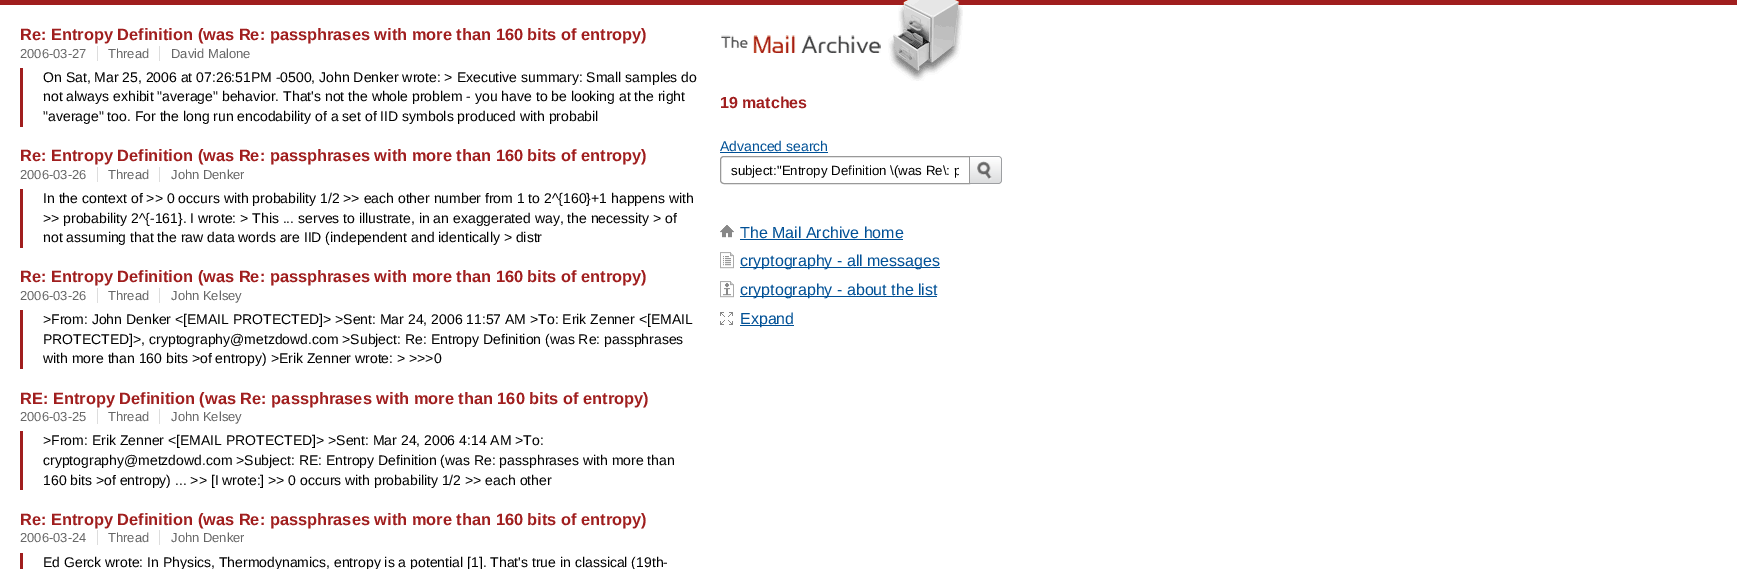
%!PS-Adobe-3.0
%%BoundingBox: 0 0 1737 569
%%LanguageLevel: 3
%%Pages: 1
%%EndComments
%%BeginProlog
/setink { 3 { 255 div 3 1 roll } repeat setrgbcolor } def
/usefont { [ exch dup neg 0 0 3 -1 roll 0 0 ] selectfont } def
/drawtext { setink usefont moveto show } def
/fillbox { setink rectfill } def
/drawimage { 5 dict begin { /h /w /y /x /name } { exch def } forall
  gsave x y translate w h scale
  w h 8 [w 0 0 h 0 0] name (r) file false 3 colorimage grestore end } def
%%EndProlog
%%BeginSetup
<< /PageSize [1737 569] >> setpagedevice
%%EndSetup
%%Page: 1 1
0 569 translate 1 -1 scale
4 setmiterlimit
0 0 1737 569 255 255 255 fillbox
0 0 1737 5 160 30 30 fillbox
(Re: Entropy Definition \(was Re: passphrases with more than 160 bits of entropy\)) 20 40 /LiberationSans-Bold 16.4 160 30 30 drawtext
(2006-03-27) 20 58 /LiberationSans-Regular 13 102 102 102 drawtext
97 46 1 15 221 221 221 fillbox
(Thread) 108 58 /LiberationSans-Regular 13 102 102 102 drawtext
159 46 1 15 221 221 221 fillbox
(David Malone) 171 58 /LiberationSans-Regular 13 102 102 102 drawtext
20 68 3 59 160 30 30 fillbox
(On Sat, Mar 25, 2006 at 07:26:51PM -0500, John Denker wrote: > Executive summary: Small samples do) 43 82 /LiberationSans-Regular 14 0 0 0 drawtext
(not always exhibit "average" behavior. That's not the whole problem - you have to be looking at the right) 43 101 /LiberationSans-Regular 14 0 0 0 drawtext
("average" too. For the long run encodability of a set of IID symbols produced with probabil) 43 121 /LiberationSans-Regular 14 0 0 0 drawtext
(Re: Entropy Definition \(was Re: passphrases with more than 160 bits of entropy\)) 20 161 /LiberationSans-Bold 16.4 160 30 30 drawtext
(2006-03-26) 20 179 /LiberationSans-Regular 13 102 102 102 drawtext
97 167 1 15 221 221 221 fillbox
(Thread) 108 179 /LiberationSans-Regular 13 102 102 102 drawtext
159 167 1 15 221 221 221 fillbox
(John Denker) 171 179 /LiberationSans-Regular 13 102 102 102 drawtext
20 189 3 59 160 30 30 fillbox
(In the context of >> 0 occurs with probability 1/2 >> each other number from 1 to 2^{160}+1 happens with) 43 203 /LiberationSans-Regular 14 0 0 0 drawtext
(>> probability 2^{-161}. I wrote: > This ... serves to illustrate, in an exaggerated way, the necessity > of) 43 223 /LiberationSans-Regular 14 0 0 0 drawtext
(not assuming that the raw data words are IID \(independent and identically > distr) 43 242 /LiberationSans-Regular 14 0 0 0 drawtext
(Re: Entropy Definition \(was Re: passphrases with more than 160 bits of entropy\)) 20 282 /LiberationSans-Bold 16.4 160 30 30 drawtext
(2006-03-26) 20 300 /LiberationSans-Regular 13 102 102 102 drawtext
97 288 1 15 221 221 221 fillbox
(Thread) 108 300 /LiberationSans-Regular 13 102 102 102 drawtext
159 288 1 15 221 221 221 fillbox
(John Kelsey) 171 300 /LiberationSans-Regular 13 102 102 102 drawtext
20 310 3 59 160 30 30 fillbox
(>From: John Denker <[EMAIL PROTECTED]> >Sent: Mar 24, 2006 11:57 AM >To: Erik Zenner <[EMAIL) 43 324 /LiberationSans-Regular 14 0 0 0 drawtext
(PROTECTED]>, cryptography@metzdowd.com >Subject: Re: Entropy Definition \(was Re: passphrases) 43 344 /LiberationSans-Regular 14 0 0 0 drawtext
(with more than 160 bits >of entropy\) >Erik Zenner wrote: > >>>0) 43 363 /LiberationSans-Regular 14 0 0 0 drawtext
(RE: Entropy Definition \(was Re: passphrases with more than 160 bits of entropy\)) 20 404 /LiberationSans-Bold 16.4 160 30 30 drawtext
(2006-03-25) 20 421 /LiberationSans-Regular 13 102 102 102 drawtext
97 409 1 15 221 221 221 fillbox
(Thread) 108 421 /LiberationSans-Regular 13 102 102 102 drawtext
159 409 1 15 221 221 221 fillbox
(John Kelsey) 171 421 /LiberationSans-Regular 13 102 102 102 drawtext
20 431 3 59 160 30 30 fillbox
(>From: Erik Zenner <[EMAIL PROTECTED]> >Sent: Mar 24, 2006 4:14 AM >To:) 43 445 /LiberationSans-Regular 14 0 0 0 drawtext
(cryptography@metzdowd.com >Subject: RE: Entropy Definition \(was Re: passphrases with more than) 43 465 /LiberationSans-Regular 14 0 0 0 drawtext
(160 bits >of entropy\) ... >> [I wrote:] >> 0 occurs with probability 1/2 >> each other) 43 485 /LiberationSans-Regular 14 0 0 0 drawtext
(Re: Entropy Definition \(was Re: passphrases with more than 160 bits of entropy\)) 20 525 /LiberationSans-Bold 16.4 160 30 30 drawtext
(2006-03-24) 20 542 /LiberationSans-Regular 13 102 102 102 drawtext
97 530 1 15 221 221 221 fillbox
(Thread) 108 542 /LiberationSans-Regular 13 102 102 102 drawtext
159 530 1 15 221 221 221 fillbox
(John Denker) 171 542 /LiberationSans-Regular 13 102 102 102 drawtext
20 553 3 16 160 30 30 fillbox
(Ed Gerck wrote: In Physics, Thermodynamics, entropy is a potential [1]. That's true in classical \(19th-) 43 567 /LiberationSans-Regular 14 0 0 0 drawtext
(assets/img1.rgb) 721 0 242 81 drawimage
(19 matches) 720 108 /LiberationSans-Bold 16 160 30 30 drawtext
(Advanced search) 720 151 /LiberationSans-Regular 14 0 80 150 drawtext
720 152 108 1 0 80 150 fillbox
153 153 153 setink
724 156.5 moveto 969.5 156.5 lineto 969.5 183.5 lineto 724 183.5 lineto 722 183.5 720.5 182 720.5 180 curveto 720.5 160 lineto 720.5 158 722 156.5 724 156.5 curveto closepath stroke
gsave
731 163 228 15 rectclip
(subject:"Entropy Definition \\\(was Re\\: p) 731 175 /LiberationSans-Regular 13.3 0 0 0 drawtext
grestore
(assets/img2.rgb) 970 156 32 28 drawimage
(assets/img3.rgb) 720 225 14 13 drawimage
(The Mail Archive home) 740 238 /LiberationSans-Regular 16 0 80 150 drawtext
740 239 163 1 0 80 150 fillbox
(assets/img4.rgb) 720 252 14 17 drawimage
740 267 200 1 0 80 150 fillbox
(cryptography - all messages) 740 266 /LiberationSans-Regular 16 0 80 150 drawtext
(assets/img5.rgb) 720 281 14 17 drawimage
740 296 197 1 0 80 150 fillbox
(cryptography - about the list) 740 295 /LiberationSans-Regular 16 0 80 150 drawtext
(assets/img6.rgb) 720 312 13 13 drawimage
740 325 54 1 0 80 150 fillbox
(Expand) 740 324 /LiberationSans-Regular 16 0 80 150 drawtext
showpage
%%EOF
